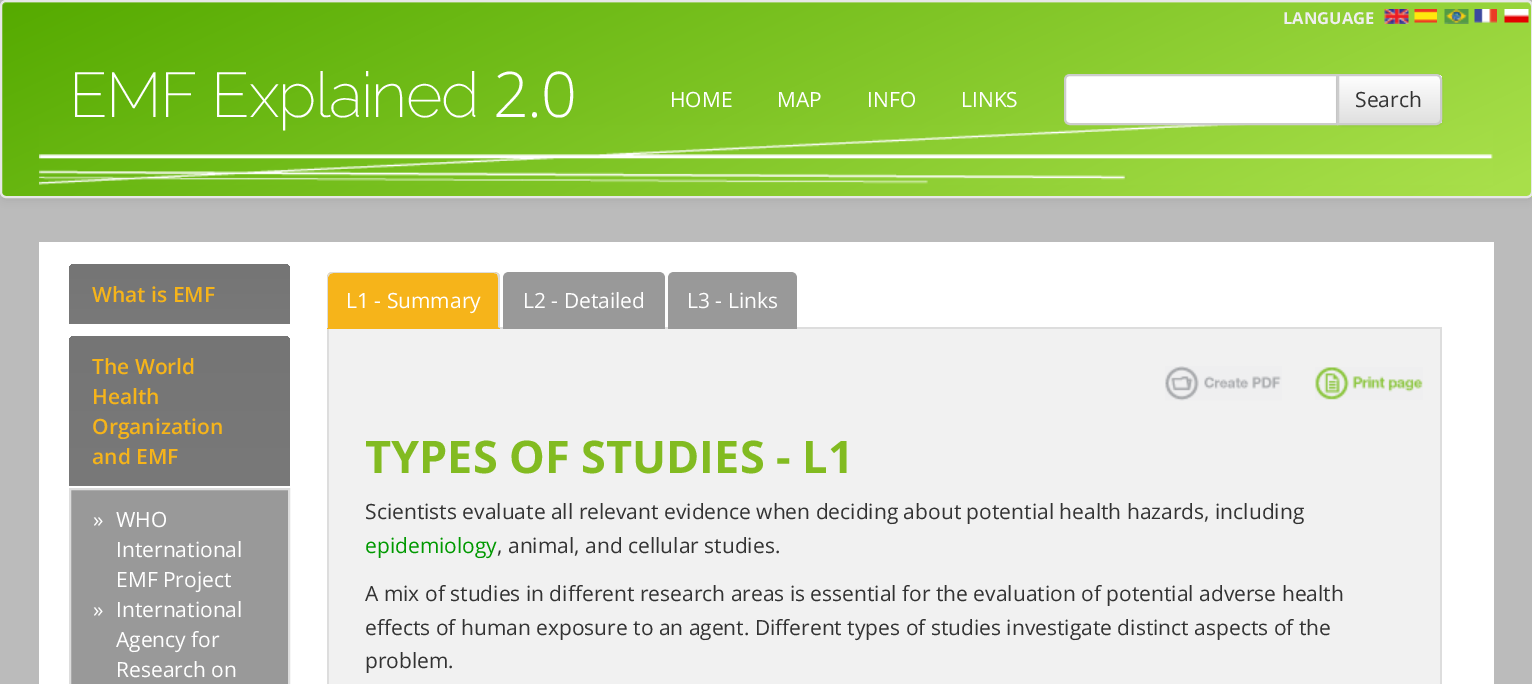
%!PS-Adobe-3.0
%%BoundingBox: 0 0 1532 684
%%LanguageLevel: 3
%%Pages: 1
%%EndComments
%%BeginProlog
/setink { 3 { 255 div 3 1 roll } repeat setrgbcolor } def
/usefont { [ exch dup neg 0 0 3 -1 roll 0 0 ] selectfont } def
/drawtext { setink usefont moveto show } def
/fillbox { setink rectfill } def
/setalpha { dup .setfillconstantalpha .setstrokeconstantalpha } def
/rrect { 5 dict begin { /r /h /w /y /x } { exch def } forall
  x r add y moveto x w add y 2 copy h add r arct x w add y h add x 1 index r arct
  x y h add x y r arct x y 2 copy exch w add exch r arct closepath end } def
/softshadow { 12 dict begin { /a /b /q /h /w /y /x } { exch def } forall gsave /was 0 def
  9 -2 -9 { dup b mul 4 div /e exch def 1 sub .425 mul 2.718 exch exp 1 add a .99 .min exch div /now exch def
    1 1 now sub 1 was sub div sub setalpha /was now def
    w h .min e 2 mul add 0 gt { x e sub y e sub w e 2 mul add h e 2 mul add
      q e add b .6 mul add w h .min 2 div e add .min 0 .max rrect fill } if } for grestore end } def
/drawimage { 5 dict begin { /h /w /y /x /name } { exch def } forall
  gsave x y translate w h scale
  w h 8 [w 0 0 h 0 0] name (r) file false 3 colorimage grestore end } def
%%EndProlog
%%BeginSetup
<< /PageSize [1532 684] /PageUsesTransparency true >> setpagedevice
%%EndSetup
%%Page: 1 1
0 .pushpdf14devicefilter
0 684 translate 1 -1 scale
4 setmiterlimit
0 0 1532 684 187 187 187 fillbox
0 0 0 setink
0 2 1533 198 6 4 0.07 softshadow
gsave
0 0 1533 198 6 rrect clip newpath
gsave 2 2 moveto 1532 2 lineto 1532 197 lineto 2 197 lineto closepath clip newpath
<< /ShadingType 2 /ColorSpace /DeviceRGB /Coords [940 472 593 -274] /Extend [true true] /Function << /FunctionType 3 /Domain [0 1] /Functions [<< /FunctionType 2 /Domain [0 1] /C0 [0.659 0.875 0.29] /C1 [0.659 0.875 0.29] /N 1 >> << /FunctionType 2 /Domain [0 1] /C0 [0.659 0.875 0.29] /C1 [0.333 0.667 0] /N 1 >>] /Bounds [0.03] /Encode [0 1 0 1] >> >> shfill grestore
grestore
0.15 setalpha
255 255 255 setink
6 3 moveto 1527 3 lineto 1529 3 1532 5 1532 8 curveto 1532 7 lineto 1532 4 1530 2 1527 2 curveto 7 2 lineto 4 2 2 4 2 7 curveto 2 8 lineto 2 5 4 3 6 3 curveto closepath fill
1 setalpha
231 231 231 setink
2 setlinewidth
1 1 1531 196 5 rrect stroke
(LANGUAGE) 1283 24 /OpenSans-Bold 16.5 238 238 238 drawtext
(assets/img1.rgb) 1384 9 25 15 drawimage
(assets/img2.rgb) 1414 9 23 14 drawimage
(assets/img3.rgb) 1444 9 25 15 drawimage
(assets/img4.rgb) 1474 9 23 14 drawimage
(assets/img5.rgb) 1504 9 25 14 drawimage
(assets/img6.rgb) 39 125 1454 60 drawimage
/Raleway-ExtraLight 63 usefont
255 255 255 setink
69 117 moveto -1.5 0 (EMF Explained) ashow
/OpenSans-Light 63 usefont
493 117 moveto -1.5 0 (2.0) ashow
(HOME) 670 107 /OpenSans-Regular 21 255 255 255 drawtext
(MAP) 777 107 /OpenSans-Regular 21 255 255 255 drawtext
(INFO) 867 107 /OpenSans-Regular 21 255 255 255 drawtext
(LINKS) 961 107 /OpenSans-Regular 21 255 255 255 drawtext
1070 75 moveto 1337 75 lineto 1337 124 lineto 1070 124 lineto 1067 124 1065 122 1065 119 curveto 1065 80 lineto 1065 77 1067 75 1070 75 curveto closepath gsave fill grestore
204 204 204 setink
stroke
0 0 0 setink
1337 75 105 51 6 1 0.07 softshadow
gsave
1337 74 moveto 1436 74 lineto 1439.5 74 1442 76.5 1442 80 curveto 1442 119 lineto 1442 122.5 1439.5 125 1436 125 curveto 1337 125 lineto closepath clip newpath
gsave 1339 75 moveto 1442 75 lineto 1442 123 lineto 1339 123 lineto closepath clip newpath
<< /ShadingType 2 /ColorSpace /DeviceRGB /Coords [1389 75 1389 123] /Extend [true true] /Function << /FunctionType 2 /Domain [0 1] /C0 [1 1 1] /C1 [0.878 0.878 0.878] /N 1 >> >> shfill grestore
grestore
204 204 204 setink
1338 75 moveto 1436 75 lineto 1439 75 1441 77 1441 80 curveto 1441 119 lineto 1441 122 1439 124 1436 124 curveto 1338 124 lineto closepath stroke
(Search) 1355 107 /OpenSans-Regular 21 51 51 51 drawtext
39 242 1455 442 255 255 255 fillbox
gsave 75 264 moveto 284 264 lineto 287.5 264 290 266.5 290 270 curveto 290 324 lineto 69 324 lineto 69 270 lineto 69 266.5 71.5 264 75 264 curveto closepath clip newpath
<< /ShadingType 2 /ColorSpace /DeviceRGB /Coords [179 264 179 324] /Extend [true true] /Function << /FunctionType 2 /Domain [0 1] /C0 [0.459 0.459 0.459] /C1 [0.475 0.475 0.475] /N 1 >> >> shfill grestore
(What is EMF) 92 302 /OpenSans-SemiBold 21 246 180 26 drawtext
gsave 75 336 moveto 284 336 lineto 287.5 336 290 338.5 290 342 curveto 290 486 lineto 69 486 lineto 69 342 lineto 69 338.5 71.5 336 75 336 curveto closepath clip newpath
<< /ShadingType 2 /ColorSpace /DeviceRGB /Coords [179 336 179 486] /Extend [true true] /Function << /FunctionType 2 /Domain [0 1] /C0 [0.459 0.459 0.459] /C1 [0.475 0.475 0.475] /N 1 >> >> shfill grestore
(The World) 92 374 /OpenSans-SemiBold 21 246 180 26 drawtext
(Health) 92 404 /OpenSans-SemiBold 21 246 180 26 drawtext
(Organization) 92 434 /OpenSans-SemiBold 21 246 180 26 drawtext
(and EMF) 92 464 /OpenSans-SemiBold 21 246 180 26 drawtext
153 153 153 setink
70 489 moveto 289 489 lineto 289 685 lineto 70 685 lineto closepath gsave fill grestore
221 221 221 setink
stroke
(») 93 527 /OpenSans-Regular 21 255 255 255 drawtext
(WHO) 116 527 /OpenSans-Regular 21 255 255 255 drawtext
(International) 116 557 /OpenSans-Regular 21 255 255 255 drawtext
(EMF Project) 116 587 /OpenSans-Regular 21 255 255 255 drawtext
(») 93 617 /OpenSans-Regular 21 255 255 255 drawtext
(International) 116 617 /OpenSans-Regular 21 255 255 255 drawtext
(Agency for) 116 647 /OpenSans-Regular 21 255 255 255 drawtext
(Research on) 116 677 /OpenSans-Regular 21 255 255 255 drawtext
500 327 942 2 221 221 221 fillbox
246 180 26 setink
333 272 moveto 494 272 lineto 497.5 272 500 274.5 500 278 curveto 500 329 lineto 327 329 lineto 327 278 lineto 327 274.5 329.5 272 333 272 curveto closepath fill
221 221 221 setink
333 272 moveto 332 272 330 272 329 273 curveto 330 274 lineto 333 273 lineto 494 273 lineto 497 274 lineto 498 273 lineto 494 272 lineto closepath fill
498 273 moveto 500 275 lineto 500 328 lineto 498 327 lineto 498 278 lineto 498 276 497 275 497 274 curveto closepath fill
327 278 moveto 327 328 lineto 328 328 lineto 328 327 lineto 328 277 lineto 330 274 lineto 329 273 lineto 328 274 327 276 327 278 curveto closepath fill
(L1 - Summary) 346 308 /OpenSans-Regular 21 255 255 255 drawtext
153 153 153 setink
509 272 moveto 659 272 lineto 662.5 272 665 274.5 665 278 curveto 665 329 lineto 503 329 lineto 503 278 lineto 503 274.5 505.5 272 509 272 curveto closepath fill
(L2 - Detailed) 523 308 /OpenSans-Regular 21 255 255 255 drawtext
153 153 153 setink
674 272 moveto 791 272 lineto 794.5 272 797 274.5 797 278 curveto 797 329 lineto 668 329 lineto 668 278 lineto 668 274.5 670.5 272 674 272 curveto closepath fill
(L3 - Links) 687 308 /OpenSans-Regular 21 255 255 255 drawtext
329 329 1111 355 241 241 241 fillbox
1440 329 2 355 221 221 221 fillbox
327 329 2 355 221 221 221 fillbox
(assets/img7.rgb) 1165 366 117 35 drawimage
(assets/img8.rgb) 1315 367 108 33 drawimage
(TYPES OF STUDIES - L1) 365 473 /OpenSans-Bold 45 130 187 33 drawtext
(Scientists evaluate all relevant evidence when deciding about potential health hazards, including) 365 519 /OpenSans-Regular 21 51 51 51 drawtext
(epidemiology) 365 553 /OpenSans-Regular 21 0 153 0 drawtext
(, animal, and cellular studies.) 497 553 /OpenSans-Regular 21 51 51 51 drawtext
(A mix of studies in different research areas is essential for the evaluation of potential adverse health) 365 601 /OpenSans-Regular 21 51 51 51 drawtext
(effects of human exposure to an agent. Different types of studies investigate distinct aspects of the) 365 635 /OpenSans-Regular 21 51 51 51 drawtext
(problem.) 365 668 /OpenSans-Regular 21 51 51 51 drawtext
.poppdf14devicefilter showpage
%%EOF
